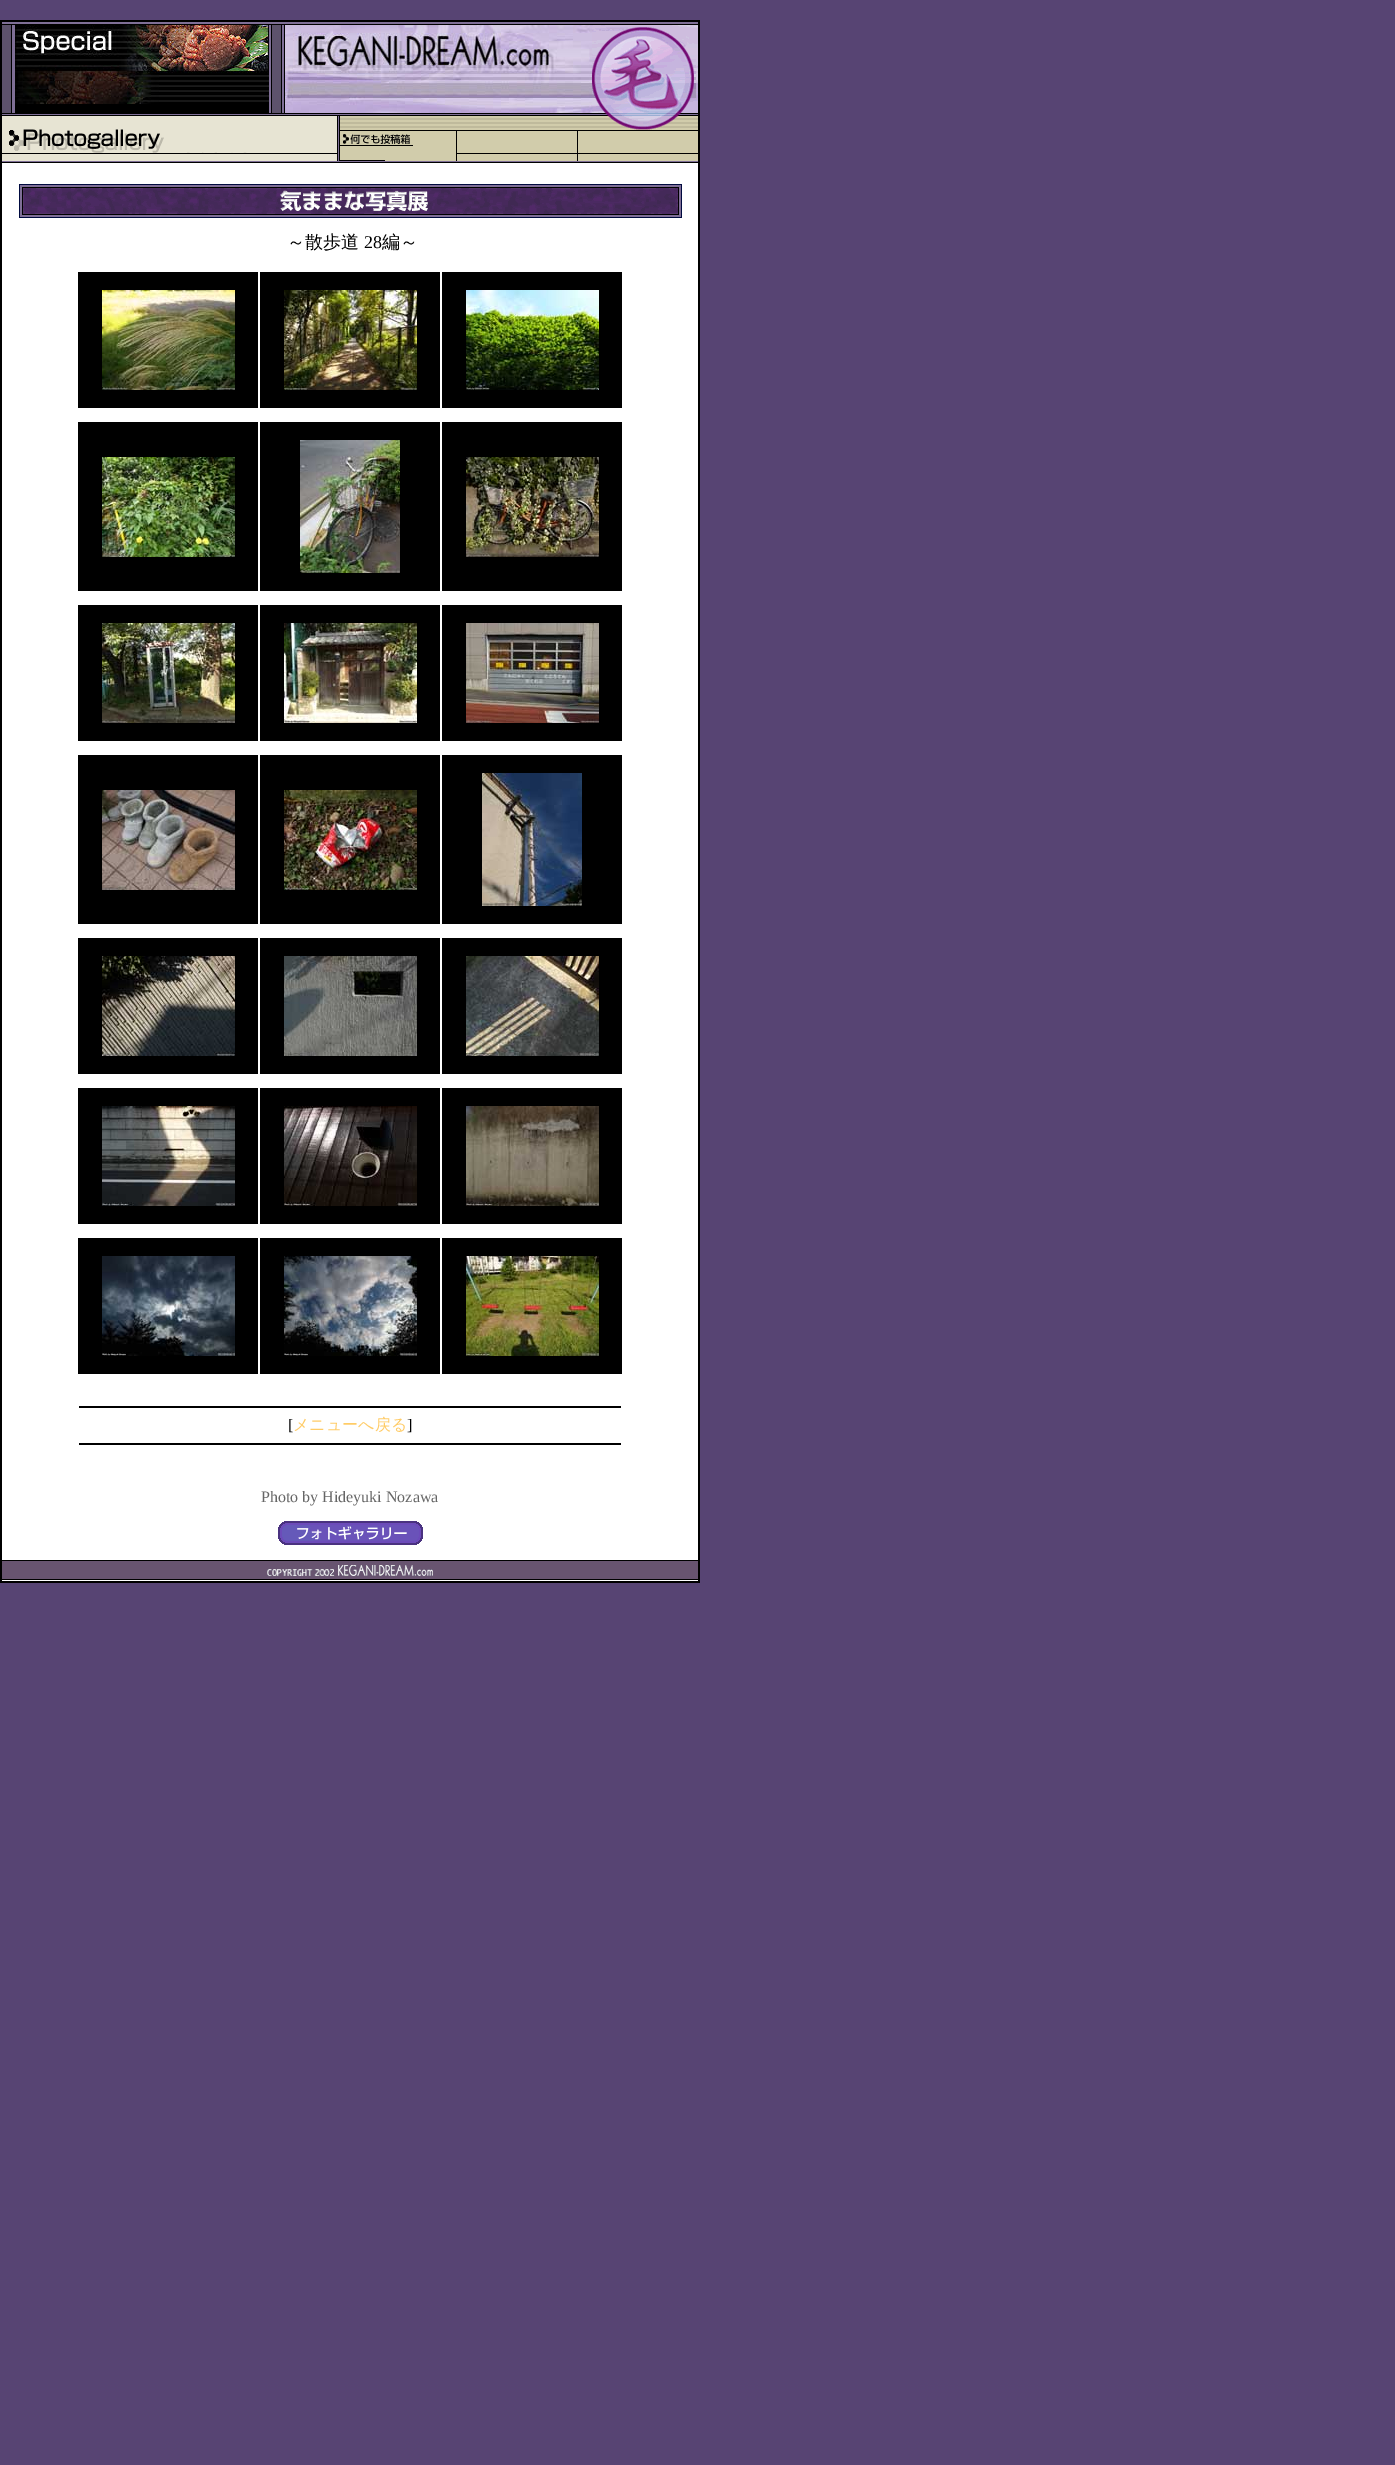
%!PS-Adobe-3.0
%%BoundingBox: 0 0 1395 2465
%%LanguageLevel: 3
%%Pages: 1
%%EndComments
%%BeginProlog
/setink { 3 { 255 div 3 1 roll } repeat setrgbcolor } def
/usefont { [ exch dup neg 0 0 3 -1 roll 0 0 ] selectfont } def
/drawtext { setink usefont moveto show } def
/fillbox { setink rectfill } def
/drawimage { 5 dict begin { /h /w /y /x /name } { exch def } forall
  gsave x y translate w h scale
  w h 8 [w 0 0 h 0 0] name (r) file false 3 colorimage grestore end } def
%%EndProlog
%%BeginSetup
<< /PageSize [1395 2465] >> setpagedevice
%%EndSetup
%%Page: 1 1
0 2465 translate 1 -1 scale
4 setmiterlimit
0 0 1395 2465 87 68 115 fillbox
0 20 700 1563 0 0 0 fillbox
2 22 696 2 127 111 150 fillbox
2 25 9 88 93 82 108 fillbox
12 25 3 88 127 111 150 fillbox
(assets/img1.rgb) 15 25 254 79 drawimage
269 25 2 88 127 111 150 fillbox
272 25 9 88 93 82 108 fillbox
282 25 2 88 127 111 150 fillbox
(assets/img2.rgb) 285 25 307 88 drawimage
(assets/img3.rgb) 592 25 106 91 drawimage
2 114 590 1 127 111 150 fillbox
2 116 335 45 231 228 211 fillbox
(assets/img4.rgb) 2 129 335 25 drawimage
338 116 1 45 127 111 150 fillbox
(assets/img5.rgb) 340 116 252 14 drawimage
(assets/img6.rgb) 592 116 106 14 drawimage
340 131 116 30 209 204 171 fillbox
(assets/img7.rgb) 340 134 73 12 drawimage
340 160 45 1 0 0 0 fillbox
457 131 120 30 209 204 171 fillbox
457 153 120 1 0 0 0 fillbox
578 131 120 30 209 204 171 fillbox
578 153 120 1 0 0 0 fillbox
2 161 696 1 127 111 150 fillbox
2 163 696 1397 255 255 255 fillbox
(assets/img8.rgb) 19 184 663 34 drawimage
(～散歩道) 287 248 /WenQuanYiZenHei-Medium 18 0 0 0 drawtext
(28) 364 248 /LiberationSerif-Regular 18 0 0 0 drawtext
(編～) 382 248 /WenQuanYiZenHei-Medium 18 0 0 0 drawtext
78 272 180 136 0 0 0 fillbox
(assets/img9.rgb) 102 290 133 100 drawimage
260 272 180 136 0 0 0 fillbox
(assets/img10.rgb) 284 290 133 100 drawimage
442 272 180 136 0 0 0 fillbox
(assets/img11.rgb) 466 290 133 100 drawimage
78 422 180 169 0 0 0 fillbox
(assets/img12.rgb) 102 457 133 100 drawimage
260 422 180 169 0 0 0 fillbox
(assets/img13.rgb) 300 440 100 133 drawimage
442 422 180 169 0 0 0 fillbox
(assets/img14.rgb) 466 457 133 100 drawimage
78 605 180 136 0 0 0 fillbox
(assets/img15.rgb) 102 623 133 100 drawimage
260 605 180 136 0 0 0 fillbox
(assets/img16.rgb) 284 623 133 100 drawimage
442 605 180 136 0 0 0 fillbox
(assets/img17.rgb) 466 623 133 100 drawimage
78 755 180 169 0 0 0 fillbox
(assets/img18.rgb) 102 790 133 100 drawimage
260 755 180 169 0 0 0 fillbox
(assets/img19.rgb) 284 790 133 100 drawimage
442 755 180 169 0 0 0 fillbox
(assets/img20.rgb) 482 773 100 133 drawimage
78 938 180 136 0 0 0 fillbox
(assets/img21.rgb) 102 956 133 100 drawimage
260 938 180 136 0 0 0 fillbox
(assets/img22.rgb) 284 956 133 100 drawimage
442 938 180 136 0 0 0 fillbox
(assets/img23.rgb) 466 956 133 100 drawimage
78 1088 180 136 0 0 0 fillbox
(assets/img24.rgb) 102 1106 133 100 drawimage
260 1088 180 136 0 0 0 fillbox
(assets/img25.rgb) 284 1106 133 100 drawimage
442 1088 180 136 0 0 0 fillbox
(assets/img26.rgb) 466 1106 133 100 drawimage
78 1238 180 136 0 0 0 fillbox
(assets/img27.rgb) 102 1256 133 100 drawimage
260 1238 180 136 0 0 0 fillbox
(assets/img28.rgb) 284 1256 133 100 drawimage
442 1238 180 136 0 0 0 fillbox
(assets/img29.rgb) 466 1256 133 100 drawimage
79 1406 542 2 0 0 0 fillbox
([) 288 1430 /LiberationSerif-Regular 16 0 0 0 drawtext
(メニューへ戻る) 293 1430 /WenQuanYiZenHei-Medium 16 255 204 102 drawtext
(]) 407 1430 /LiberationSerif-Regular 16 0 0 0 drawtext
79 1443 542 2 0 0 0 fillbox
(Photo by Hideyuki Nozawa) 261 1502 /LiberationSerif-Regular 16 102 102 102 drawtext
(assets/img30.rgb) 278 1521 145 24 drawimage
2 1561 696 18 104 84 112 fillbox
(assets/img31.rgb) 267 1565 166 12 drawimage
2 1580 696 1 255 255 255 fillbox
showpage
%%EOF
